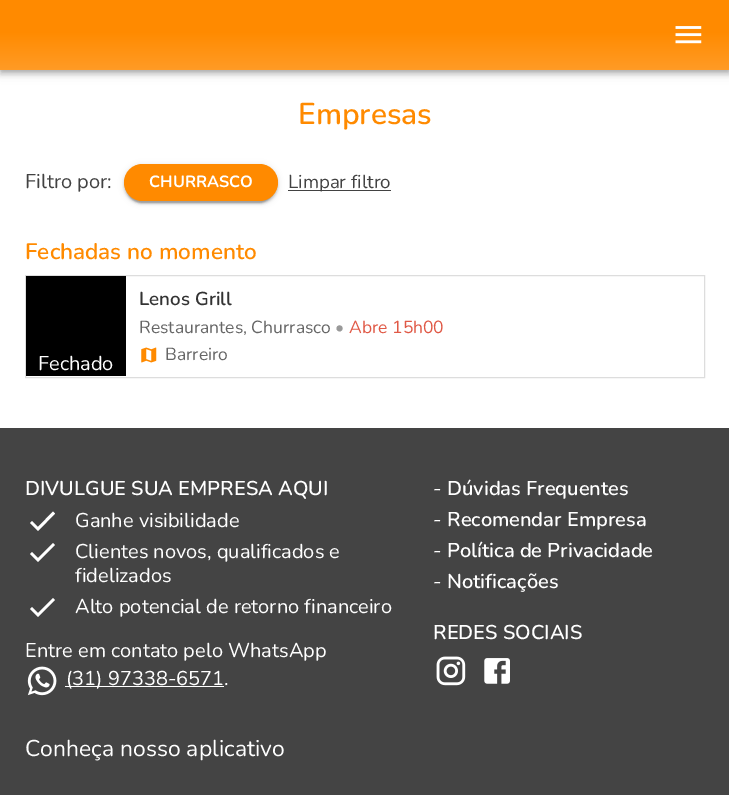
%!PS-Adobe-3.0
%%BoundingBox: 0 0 729 795
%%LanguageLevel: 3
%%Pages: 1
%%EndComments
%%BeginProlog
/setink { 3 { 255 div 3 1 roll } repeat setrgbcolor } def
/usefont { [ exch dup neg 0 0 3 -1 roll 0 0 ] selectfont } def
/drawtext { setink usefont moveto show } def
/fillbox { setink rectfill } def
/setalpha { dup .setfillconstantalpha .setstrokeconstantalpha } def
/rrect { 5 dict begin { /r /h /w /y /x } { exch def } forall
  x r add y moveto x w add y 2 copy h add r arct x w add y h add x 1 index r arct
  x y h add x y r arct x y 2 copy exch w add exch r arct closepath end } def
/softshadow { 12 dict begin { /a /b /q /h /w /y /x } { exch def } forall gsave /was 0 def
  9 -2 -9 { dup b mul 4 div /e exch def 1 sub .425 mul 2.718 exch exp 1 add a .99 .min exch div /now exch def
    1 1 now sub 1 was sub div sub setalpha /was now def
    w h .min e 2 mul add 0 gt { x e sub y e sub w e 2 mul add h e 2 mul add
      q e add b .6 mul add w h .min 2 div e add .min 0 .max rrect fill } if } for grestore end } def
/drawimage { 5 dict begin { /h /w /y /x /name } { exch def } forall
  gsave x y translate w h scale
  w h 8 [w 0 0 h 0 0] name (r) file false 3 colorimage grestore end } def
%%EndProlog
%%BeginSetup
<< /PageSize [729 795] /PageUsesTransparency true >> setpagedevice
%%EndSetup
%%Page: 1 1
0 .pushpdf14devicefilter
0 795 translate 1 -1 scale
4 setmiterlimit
0 0 729 795 255 255 255 fillbox
0 0 0 setink
0 1 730 70 0 6 0.12 softshadow
0 5 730 70 0 3 0.14 softshadow
1 4 728 67 0 2.5 0.2 softshadow
gsave 0 0 moveto 729 0 lineto 729 70 lineto 0 70 lineto closepath clip newpath
<< /ShadingType 2 /ColorSpace /DeviceRGB /Coords [365 0 365 70] /Extend [true true] /Function << /FunctionType 3 /Domain [0 1] /Functions [<< /FunctionType 2 /Domain [0 1] /C0 [1 0.541 0] /C1 [1 0.541 0] /N 1 >> << /FunctionType 2 /Domain [0 1] /C0 [1 0.541 0] /C1 [1 0.608 0.149] /N 1 >>] /Bounds [0.45] /Encode [0 1 0 1] >> >> shfill grestore
(assets/img1.rgb) 675 26 27 18 drawimage
(Empresas) 298 124 /Nunito-SemiBold 30 255 138 0 drawtext
(Filtro por:) 25 188 /Nunito-Regular 20 66 66 66 drawtext
0 0 0 setink
124 165 154 38 19 3 0.12 softshadow
124 166 154 38 19 1 0.14 softshadow
126 170 149 33 16.5 0.5 0.2 softshadow
255 138 0 setink
124 164 154 37 18.5 rrect fill
(CHURRASCO) 149 187 /Nunito-Bold 16.25 255 255 255 drawtext
288 190 103 1 66 66 66 fillbox
(Limpar filtro) 288 188 /Nunito-Regular 18.75 66 66 66 drawtext
(Fechadas no momento) 25 259 /Nunito-SemiBold 22.5 255 138 0 drawtext
221 221 221 setink
25.5 275.5 679 102 rectstroke
(Lenos Grill) 139 305 /Nunito-SemiBold 18.75 51 51 51 drawtext
(Restaurantes, Churrasco) 139 333 /Nunito-Regular 17.5 102 102 102 drawtext
(•) 335 333 /Nunito-Regular 17.5 153 153 153 drawtext
(Abre 15h00) 349 333 /Nunito-Regular 17.5 224 89 70 drawtext
(assets/img2.rgb) 141 347 16 16 drawimage
(Barreiro) 165 360 /Nunito-Regular 17.5 102 102 102 drawtext
26 276 100 100 0 0 0 fillbox
(Fechado) 38 370 /Nunito-Regular 20 255 255 255 drawtext
0 428 729 367 68 68 68 fillbox
(DIVULGUE SUA EMPRESA AQUI) 25 495 /Nunito-SemiBold 20 255 255 255 drawtext
38 527 moveto 32 521 lineto 30 523 lineto 38 531 lineto 55 513.5 lineto 53 511.5 lineto closepath fill
(Ganhe visibilidade) 75 527 /Nunito-Regular 20 255 255 255 drawtext
38 558 moveto 32 552 lineto 30 554 lineto 38 562 lineto 55 545 lineto 53 543 lineto closepath fill
(Clientes novos, qualificados e) 75 558 /Nunito-Regular 20 255 255 255 drawtext
(fidelizados) 75 582 /Nunito-Regular 20 255 255 255 drawtext
38 613 moveto 32 607 lineto 30 609 lineto 38 617 lineto 55 600 lineto 53 598 lineto closepath fill
(Alto potencial de retorno financeiro) 75 613 /Nunito-Regular 20 255 255 255 drawtext
(Entre em contato pelo WhatsApp) 25 657 /Nunito-Regular 20 255 255 255 drawtext
(assets/img3.rgb) 27 666 30 30 drawimage
65 686 159 1 255 255 255 fillbox
(\(31\) 97338-6571.) 66 685 /Nunito-Regular 20 255 255 255 drawtext
(-) 433 495 /Nunito-Regular 20 255 255 255 drawtext
(Dúvidas Frequentes) 447 495 /Nunito-SemiBold 20 255 255 255 drawtext
(-) 433 526 /Nunito-Regular 20 255 255 255 drawtext
(Recomendar Empresa) 447 526 /Nunito-SemiBold 20 255 255 255 drawtext
(-) 433 557 /Nunito-Regular 20 255 255 255 drawtext
(Política de Privacidade) 447 557 /Nunito-SemiBold 20 255 255 255 drawtext
(-) 433 588 /Nunito-Regular 20 255 255 255 drawtext
(Notificações) 447 588 /Nunito-SemiBold 20 255 255 255 drawtext
(REDES SOCIAIS) 433 639 /Nunito-SemiBold 20 255 255 255 drawtext
(assets/img4.rgb) 436 656 30 30 drawimage
(assets/img5.rgb) 484 658 26 26 drawimage
(Conheça nosso aplicativo) 25 756 /Nunito-Regular 22.9 255 255 255 drawtext
.poppdf14devicefilter showpage
%%EOF
